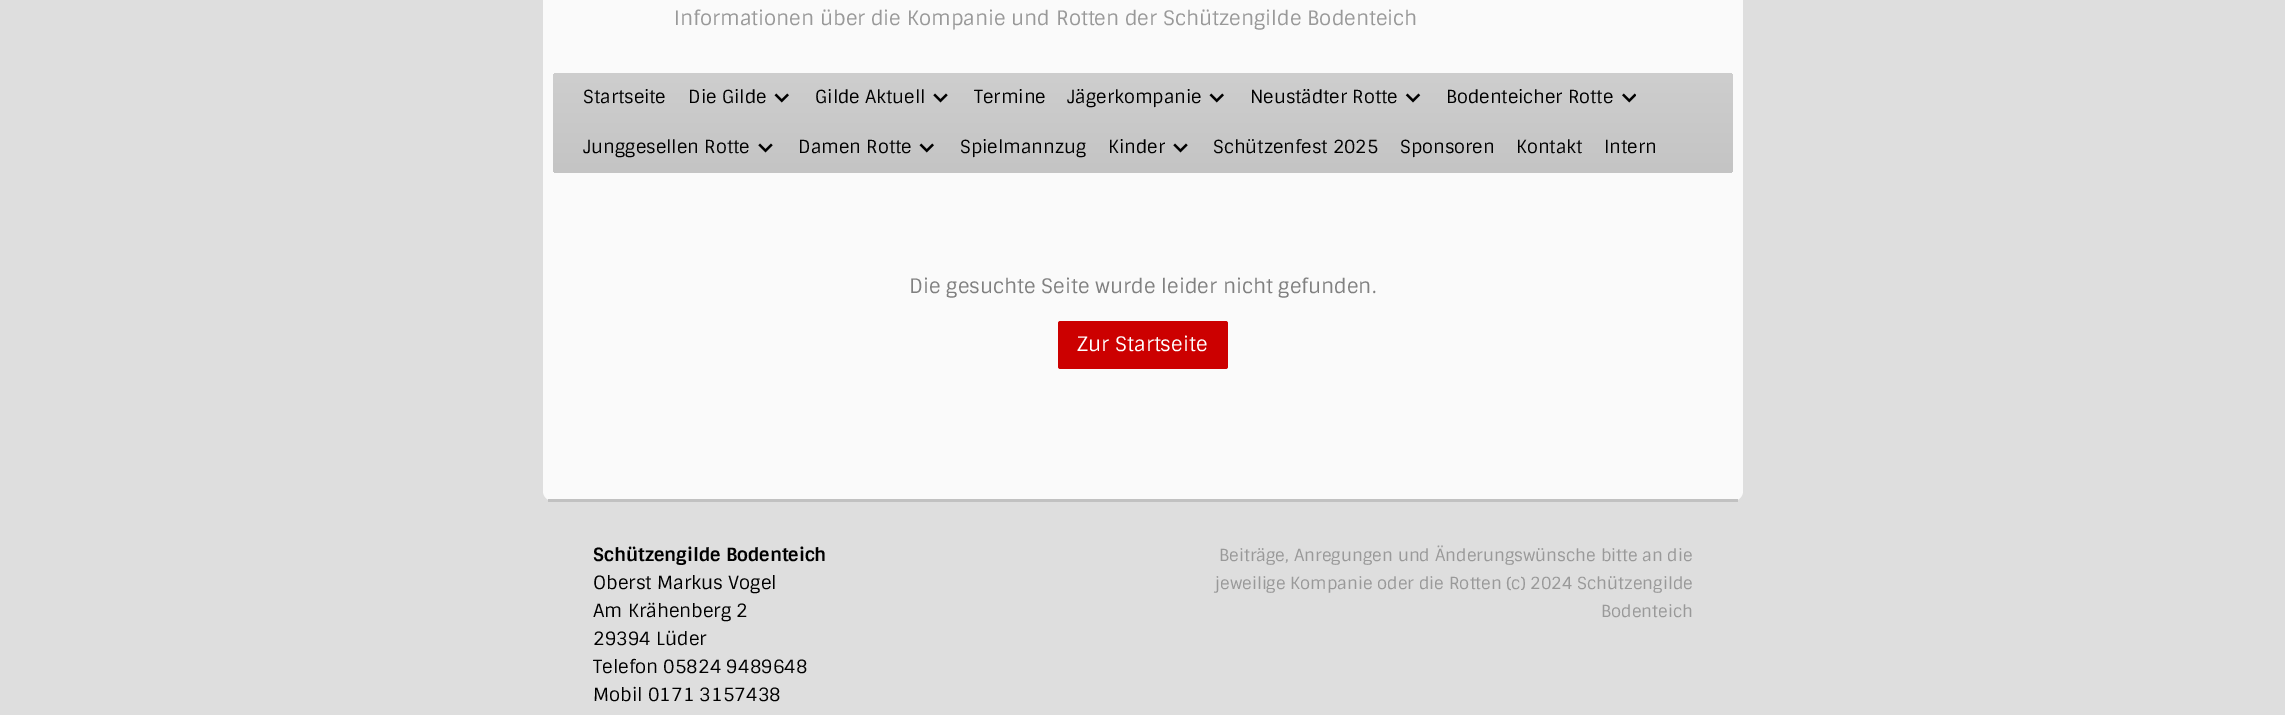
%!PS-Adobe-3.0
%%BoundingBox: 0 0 2285 715
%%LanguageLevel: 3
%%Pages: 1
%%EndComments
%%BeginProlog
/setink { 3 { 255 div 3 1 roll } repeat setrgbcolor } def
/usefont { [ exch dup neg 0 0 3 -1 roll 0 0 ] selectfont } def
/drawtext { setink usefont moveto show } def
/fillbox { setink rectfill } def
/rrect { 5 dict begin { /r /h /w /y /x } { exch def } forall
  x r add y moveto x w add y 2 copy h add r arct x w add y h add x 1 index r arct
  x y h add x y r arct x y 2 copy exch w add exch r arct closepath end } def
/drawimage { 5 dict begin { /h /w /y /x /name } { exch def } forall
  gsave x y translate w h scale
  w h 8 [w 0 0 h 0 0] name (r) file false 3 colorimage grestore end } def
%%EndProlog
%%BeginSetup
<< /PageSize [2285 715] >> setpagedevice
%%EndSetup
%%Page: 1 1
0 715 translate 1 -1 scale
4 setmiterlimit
0 0 2285 715 222 222 222 fillbox
543 0 1200 183 250 250 250 fillbox
(Informationen über die Kompanie und Rotten der Schützengilde Bodenteich) 674 25 /Sintony-Regular 20 153 153 153 drawtext
gsave 553 73 1180 100 4 rrect clip newpath
<< /ShadingType 2 /ColorSpace /DeviceRGB /Coords [1143 72 1143 173] /Extend [true true] /Function << /FunctionType 2 /Domain [0 1] /C0 [0.808 0.808 0.808] /C1 [0.769 0.769 0.769] /N 1 >> >> shfill grestore
(Startseite) 583 103 /Sintony-Regular 18 0 0 0 drawtext
(Die Gilde) 688 103 /Sintony-Regular 18 0 0 0 drawtext
(assets/img1.rgb) 774 93 15 10 drawimage
(Gilde Aktuell) 815 103 /Sintony-Regular 18 0 0 0 drawtext
(assets/img2.rgb) 933 93 15 10 drawimage
(Termine) 974 103 /Sintony-Regular 18 0 0 0 drawtext
(Jägerkompanie) 1067 103 /Sintony-Regular 18 0 0 0 drawtext
(assets/img1.rgb) 1209 93 15 10 drawimage
(Neustädter Rotte) 1250 103 /Sintony-Regular 18 0 0 0 drawtext
(assets/img3.rgb) 1405 93 16 10 drawimage
(Bodenteicher Rotte) 1446 103 /Sintony-Regular 18 0 0 0 drawtext
(assets/img4.rgb) 1622 93 14 10 drawimage
(Junggesellen Rotte) 583 153 /Sintony-Regular 18 0 0 0 drawtext
(assets/img5.rgb) 758 143 15 10 drawimage
(Damen Rotte) 798 153 /Sintony-Regular 18 0 0 0 drawtext
(assets/img6.rgb) 919 143 15 10 drawimage
(Spielmannzug) 960 153 /Sintony-Regular 18 0 0 0 drawtext
(Kinder) 1108 153 /Sintony-Regular 18 0 0 0 drawtext
(assets/img5.rgb) 1173 143 15 10 drawimage
(Schützenfest 2025) 1213 153 /Sintony-Regular 18 0 0 0 drawtext
(Sponsoren) 1400 153 /Sintony-Regular 18 0 0 0 drawtext
(Kontakt) 1516 153 /Sintony-Regular 18 0 0 0 drawtext
(Intern) 1604 153 /Sintony-Regular 18 0 0 0 drawtext
250 250 250 setink
543 183 moveto 1743 183 lineto 1743 491 lineto 1743 496.5 1738.5 501 1733 501 curveto 553 501 lineto 547.5 501 543 496.5 543 491 curveto closepath fill
548 499 1190 3 193 193 193 fillbox
(Die gesuchte Seite wurde leider nicht gefunden.) 909 293 /Sintony-Regular 20 128 128 128 drawtext
204 0 0 setink
1058 321 170 48 2.5 rrect fill
(Zur Startseite) 1077 351 /Sintony-Regular 20 255 255 255 drawtext
(Schützengilde Bodenteich) 593 561 /Sintony-Bold 18.3 0 0 0 drawtext
(Oberst Markus Vogel) 593 589 /Sintony-Regular 18.3 0 0 0 drawtext
(Am Krähenberg 2) 593 617 /Sintony-Regular 18.3 0 0 0 drawtext
(29394 Lüder) 593 645 /Sintony-Regular 18.3 0 0 0 drawtext
(Telefon 05824 9489648) 593 673 /Sintony-Regular 18.3 0 0 0 drawtext
(Mobil 0171 3157438) 593 701 /Sintony-Regular 18.3 0 0 0 drawtext
(Beiträge, Anregungen und Änderungswünsche bitte an die) 1219 561 /Sintony-Regular 16.65 153 153 153 drawtext
(jeweilige Kompanie oder die Rotten \(c\) 2024 Schützengilde) 1215 589 /Sintony-Regular 16.65 153 153 153 drawtext
(Bodenteich) 1601 617 /Sintony-Regular 16.65 153 153 153 drawtext
showpage
%%EOF
